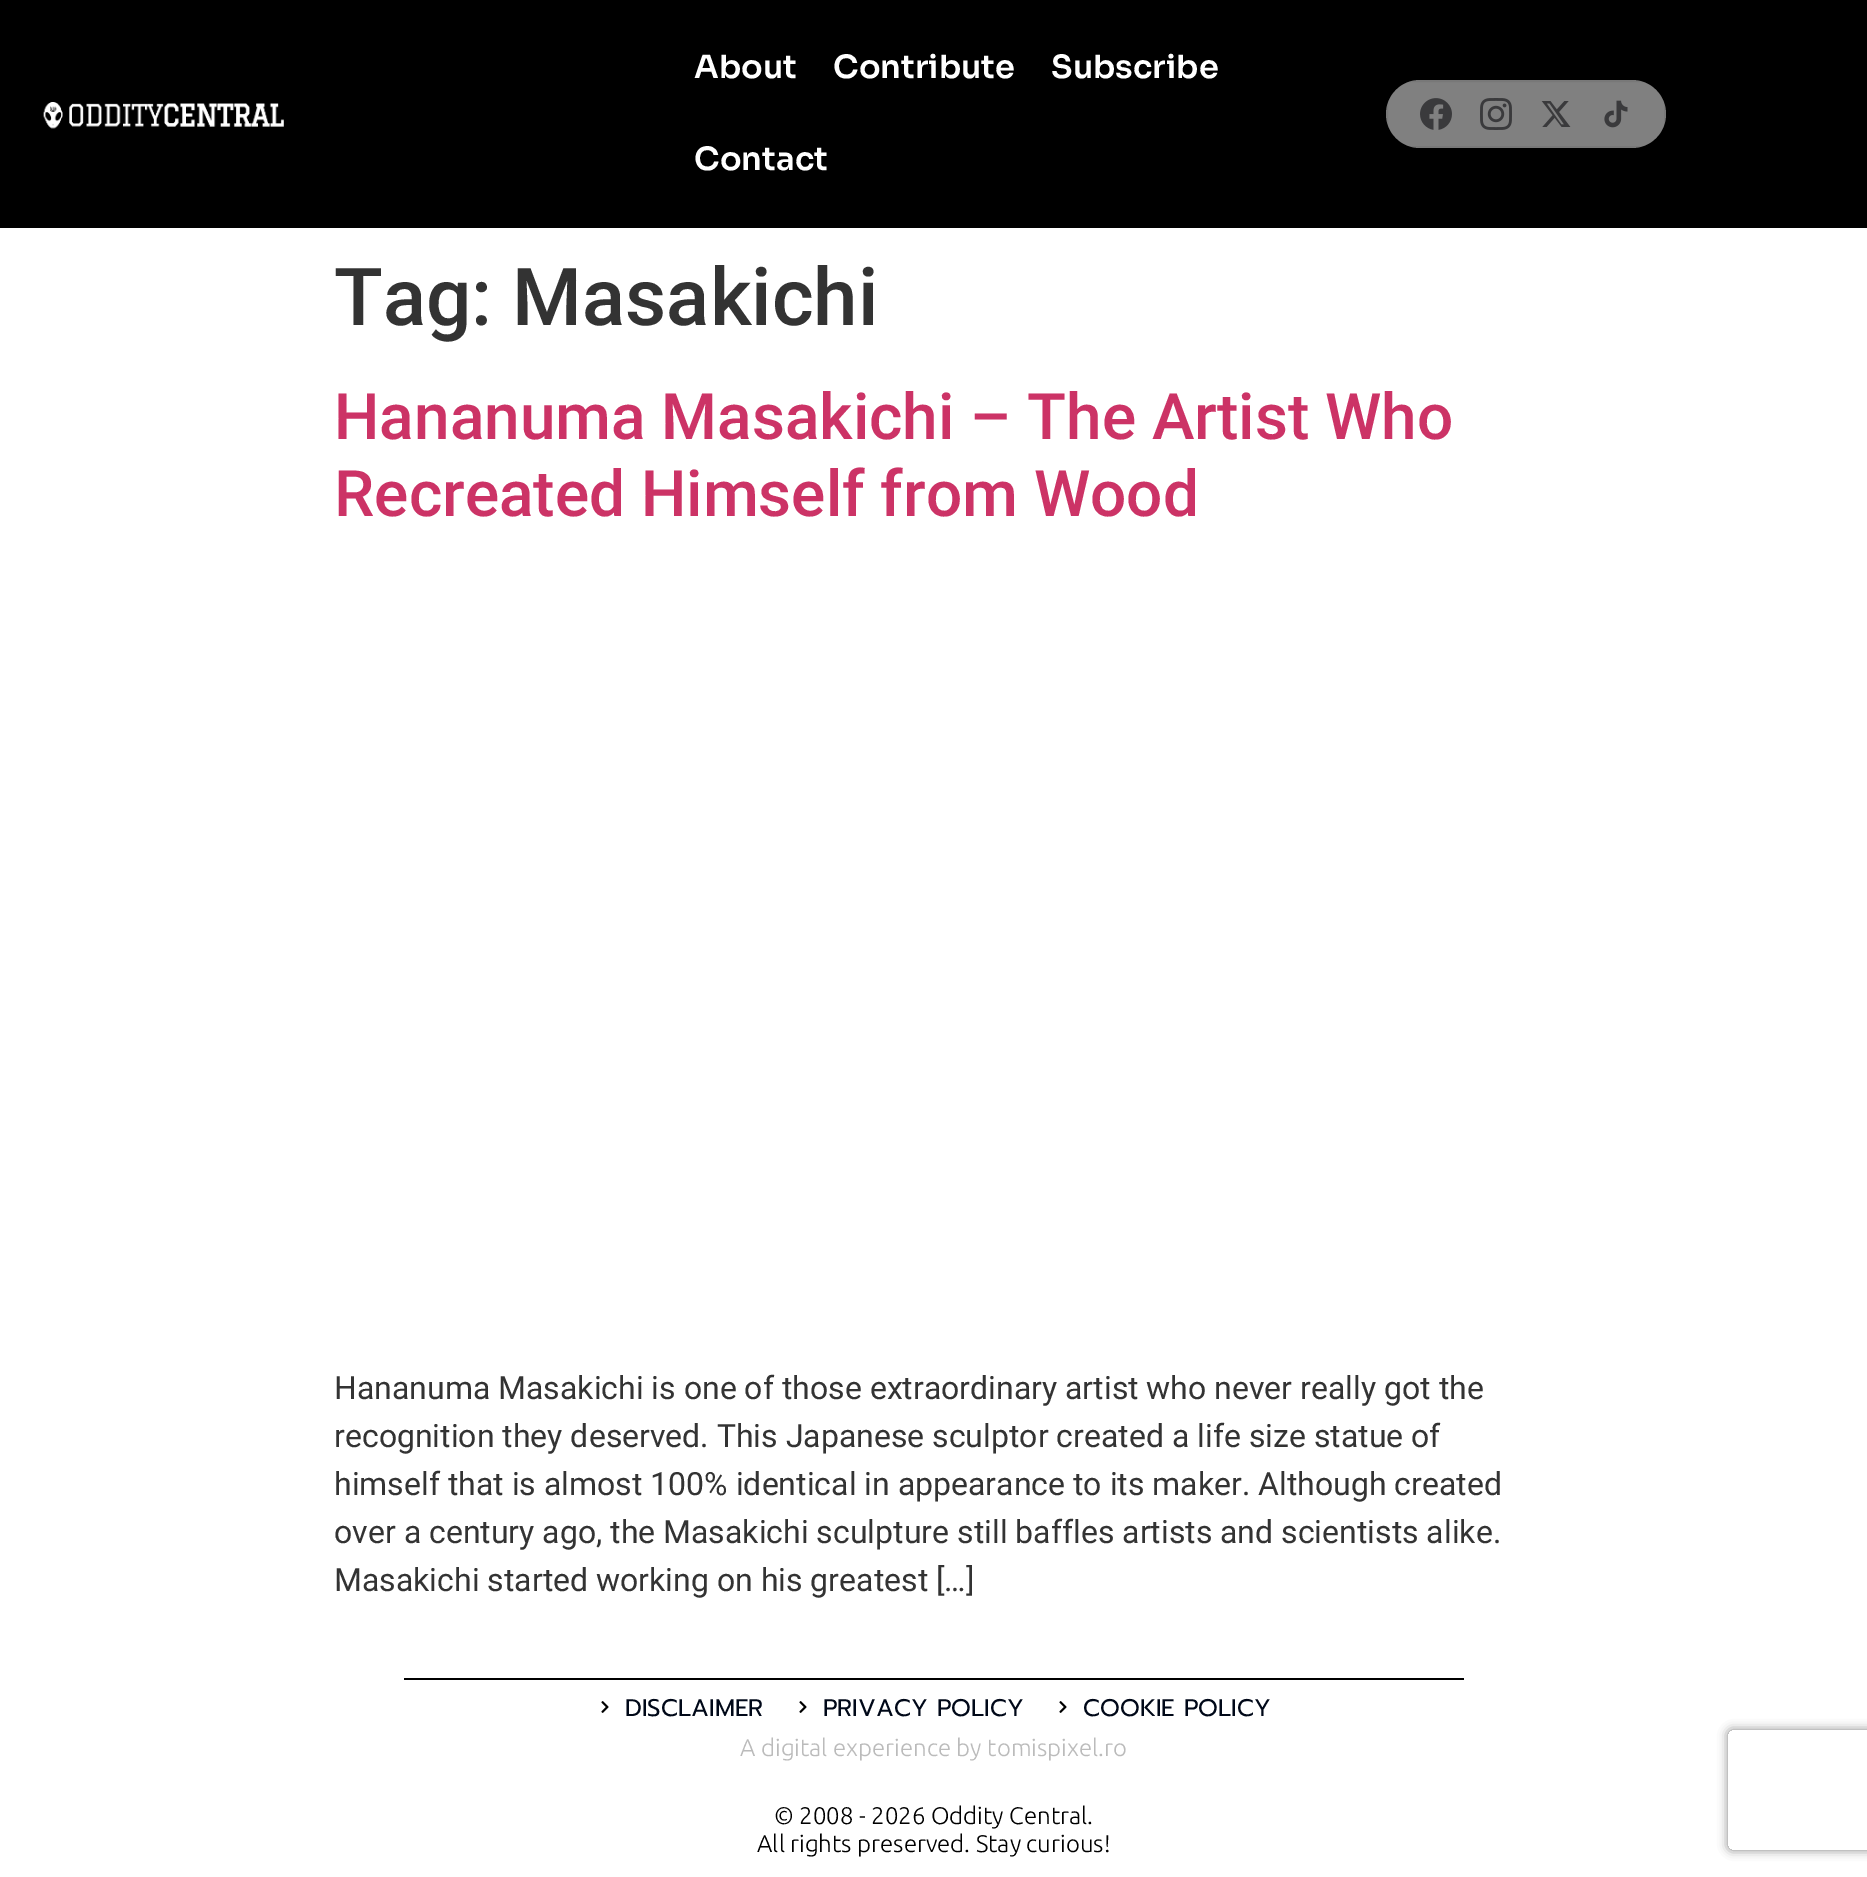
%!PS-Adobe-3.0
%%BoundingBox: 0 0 1867 1877
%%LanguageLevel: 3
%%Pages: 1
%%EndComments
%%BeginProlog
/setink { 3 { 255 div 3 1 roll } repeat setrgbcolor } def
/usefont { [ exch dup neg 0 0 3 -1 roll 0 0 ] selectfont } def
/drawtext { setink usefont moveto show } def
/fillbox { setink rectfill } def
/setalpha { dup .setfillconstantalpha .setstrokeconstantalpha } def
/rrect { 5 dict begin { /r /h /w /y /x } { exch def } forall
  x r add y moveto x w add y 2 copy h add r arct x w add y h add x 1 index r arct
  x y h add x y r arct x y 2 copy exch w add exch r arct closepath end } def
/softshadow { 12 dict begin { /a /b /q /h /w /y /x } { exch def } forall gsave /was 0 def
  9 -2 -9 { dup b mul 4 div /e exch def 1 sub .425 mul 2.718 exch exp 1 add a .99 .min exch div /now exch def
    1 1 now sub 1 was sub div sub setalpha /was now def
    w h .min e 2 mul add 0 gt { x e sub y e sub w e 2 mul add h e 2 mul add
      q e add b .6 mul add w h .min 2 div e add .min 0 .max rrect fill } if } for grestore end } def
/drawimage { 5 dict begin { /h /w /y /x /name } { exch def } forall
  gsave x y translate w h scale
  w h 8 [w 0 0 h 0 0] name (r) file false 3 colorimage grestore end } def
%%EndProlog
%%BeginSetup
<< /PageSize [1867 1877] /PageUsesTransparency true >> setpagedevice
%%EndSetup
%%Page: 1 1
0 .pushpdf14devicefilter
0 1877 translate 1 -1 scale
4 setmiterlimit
0 0 1867 1877 255 255 255 fillbox
0 0 1867 228 0 0 0 fillbox
(assets/img1.rgb) 43 102 241 27 drawimage
(About) 694 78 /Sora-SemiBold 32 255 255 255 drawtext
(Contribute) 833 78 /Sora-SemiBold 32 255 255 255 drawtext
(Subscribe) 1051 78 /Sora-SemiBold 32 255 255 255 drawtext
(Contact) 694 170 /Sora-SemiBold 32 255 255 255 drawtext
128 128 128 setink
1386 80 280 68 34 rrect fill
0.06 setalpha
0 0 0 setink
2 setlinewidth
1387 81 278 66 rectstroke
1 setalpha
(assets/img2.rgb) 1420 98 32 32 drawimage
(assets/img3.rgb) 1480 98 32 32 drawimage
(assets/img4.rgb) 1541 101 30 26 drawimage
(assets/img5.rgb) 1604 100 24 28 drawimage
(Tag: Masakichi) 334 325 /Roboto-Medium 80 51 51 51 drawtext
(Hananuma Masakichi – The Artist Who) 334 439 /Roboto-Medium 64 204 51 102 drawtext
(Recreated Himself from Wood) 334 516 /Roboto-Medium 64 204 51 102 drawtext
(Hananuma Masakichi is one of those extraordinary artist who never really got the) 334 1399 /Roboto-Regular 32 51 51 51 drawtext
(recognition they deserved. This Japanese sculptor created a life size statue of) 334 1447 /Roboto-Regular 32 51 51 51 drawtext
(himself that is almost 100% identical in appearance to its maker. Although created) 334 1495 /Roboto-Regular 32 51 51 51 drawtext
(over a century ago, the Masakichi sculpture still baffles artists and scientists alike.) 334 1543 /Roboto-Regular 32 51 51 51 drawtext
(Masakichi started working on his greatest […]) 334 1591 /Roboto-Regular 32 51 51 51 drawtext
404 1678 1060 2 0 0 0 fillbox
(assets/img6.rgb) 601 1701 8 12 drawimage
(DISCLAIMER) 625 1716 /Prompt-Regular 24 0 8 24 drawtext
(assets/img6.rgb) 799 1701 8 12 drawimage
(PRIVACY POLICY) 823 1716 /Prompt-Regular 24 0 8 24 drawtext
(assets/img6.rgb) 1059 1701 8 12 drawimage
(COOKIE POLICY) 1083 1716 /Prompt-Regular 24 0 8 24 drawtext
(A digital experience by tomispixel.ro) 740 1756 /Ubuntu-Light 24 187 187 187 drawtext
(© 2008 - 2026 Oddity Central.) 774 1824 /Ubuntu-Light 24 0 0 0 drawtext
(All rights preserved. Stay curious!) 757 1852 /Ubuntu-Light 24 0 0 0 drawtext
gsave
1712 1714 moveto 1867 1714 lineto 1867 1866 lineto 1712 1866 lineto closepath 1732 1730 moveto 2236 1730 lineto 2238 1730 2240 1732 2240 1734 curveto 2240 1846 lineto 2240 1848 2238 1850 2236 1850 curveto 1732 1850 lineto 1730 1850 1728 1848 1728 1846 curveto 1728 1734 lineto 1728 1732 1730 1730 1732 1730 curveto closepath eoclip newpath
128 128 128 setink
1728 1730 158 120 4 5 1 softshadow
grestore
.poppdf14devicefilter showpage
%%EOF
